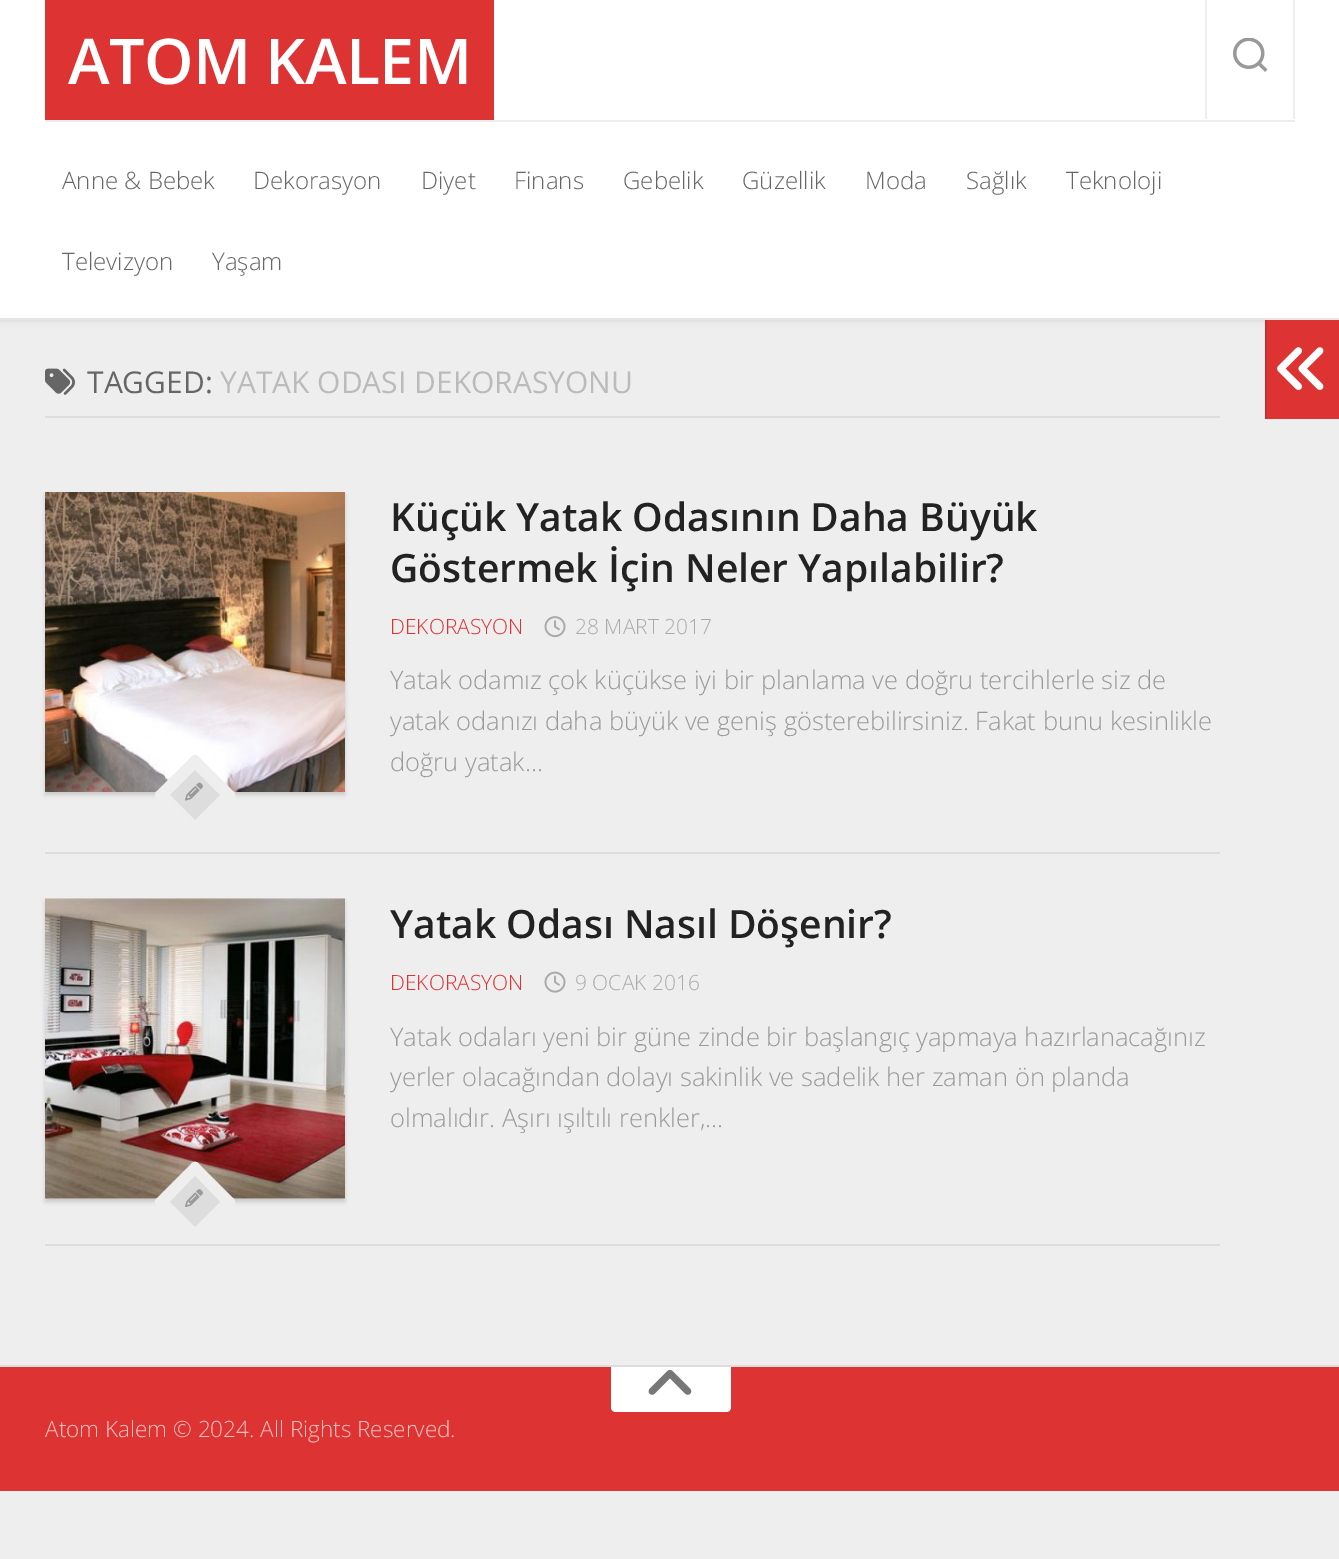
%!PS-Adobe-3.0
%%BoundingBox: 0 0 1339 1559
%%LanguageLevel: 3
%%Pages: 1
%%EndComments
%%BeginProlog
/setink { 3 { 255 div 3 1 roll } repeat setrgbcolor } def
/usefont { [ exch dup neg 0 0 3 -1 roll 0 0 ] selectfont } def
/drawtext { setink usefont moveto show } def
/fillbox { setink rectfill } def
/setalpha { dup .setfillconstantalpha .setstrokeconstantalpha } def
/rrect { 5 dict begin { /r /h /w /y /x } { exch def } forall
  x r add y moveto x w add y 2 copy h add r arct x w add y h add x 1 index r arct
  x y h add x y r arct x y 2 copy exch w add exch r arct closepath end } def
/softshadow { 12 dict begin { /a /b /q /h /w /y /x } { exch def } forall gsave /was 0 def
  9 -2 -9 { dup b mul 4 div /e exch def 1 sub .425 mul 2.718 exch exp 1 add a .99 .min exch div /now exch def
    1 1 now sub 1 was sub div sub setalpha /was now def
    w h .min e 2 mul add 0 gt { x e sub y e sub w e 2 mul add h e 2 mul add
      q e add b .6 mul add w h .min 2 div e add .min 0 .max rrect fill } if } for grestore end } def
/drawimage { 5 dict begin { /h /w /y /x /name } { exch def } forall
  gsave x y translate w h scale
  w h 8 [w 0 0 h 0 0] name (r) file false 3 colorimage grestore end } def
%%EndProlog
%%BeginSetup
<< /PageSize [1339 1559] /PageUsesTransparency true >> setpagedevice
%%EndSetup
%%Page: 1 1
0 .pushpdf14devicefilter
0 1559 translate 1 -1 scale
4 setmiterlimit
0 0 1339 1559 238 238 238 fillbox
0 0 0 setink
0 0 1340 320 0 4 0.1 softshadow
0 0 1339 318 255 255 255 fillbox
0 318 1339 2 230 230 230 fillbox
45 0 449 120 221 51 51 fillbox
/OpenSans-SemiBold 63 usefont
255 255 255 setink
68 84 moveto -0.75 0 (ATOM KALEM) ashow
45 120 1250 2 238 238 238 fillbox
(Anne & Bebek) 62 189 /OpenSans-Light 24 102 102 102 drawtext
(Dekorasyon) 253 189 /OpenSans-Light 24 102 102 102 drawtext
(Diyet) 421 189 /OpenSans-Light 24 102 102 102 drawtext
(Finans) 514 189 /OpenSans-Light 24 102 102 102 drawtext
(Gebelik) 623 189 /OpenSans-Light 24 102 102 102 drawtext
(Güzellik) 742 189 /OpenSans-Light 24 102 102 102 drawtext
(Moda) 865 189 /OpenSans-Light 24 102 102 102 drawtext
(Sağlık) 966 189 /OpenSans-Light 24 102 102 102 drawtext
(Teknoloji) 1066 189 /OpenSans-Light 24 102 102 102 drawtext
(Televizyon) 62 270 /OpenSans-Light 24 102 102 102 drawtext
(Yaşam) 212 270 /OpenSans-Light 24 102 102 102 drawtext
1293 0 2 119 238 238 238 fillbox
1205 0 2 119 238 238 238 fillbox
(assets/img1.rgb) 1233 38 35 34 drawimage
45 416 1175 2 221 221 221 fillbox
(assets/img2.rgb) 45 368 30 27 drawimage
(TAGGED:) 87 393 /OpenSans-Regular 30 102 102 102 drawtext
(YATAK ODASI DEKORASYONU) 220 393 /OpenSans-Regular 30 187 187 187 drawtext
45 852 1175 2 221 221 221 fillbox
0 0 0 setink
45 495 300 300 0 2 0.15 softshadow
(assets/img3.rgb) 45 492 300 300 drawimage
238 238 238 setink
199 757 moveto 233 791 lineto 236 793 236 797 233 799 curveto 199 833 lineto 197 836 193 836 191 833 curveto 157 799 lineto 154 797 154 793 157 791 curveto 191 757 lineto 193 754 197 754 199 757 curveto closepath fill
221 221 221 setink
195 770 moveto 220 795 lineto 195 820 lineto 170 795 lineto closepath fill
(assets/img4.rgb) 185 782 18 19 drawimage
(Küçük Yatak Odasının Daha Büyük) 390 531 /OpenSans-SemiBold 39 34 34 34 drawtext
(Göstermek İçin Neler Yapılabilir?) 390 582 /OpenSans-SemiBold 39 34 34 34 drawtext
(DEKORASYON) 390 634 /OpenSans-Light 21 221 51 51 drawtext
(assets/img5.rgb) 544 616 22 22 drawimage
(28 MART 2017) 575 634 /OpenSans-Light 21 170 170 170 drawtext
(Yatak odamız çok küçükse iyi bir planlama ve doğru tercihlerle siz de) 390 689 /OpenSans-Light 25.5 153 153 153 drawtext
(yatak odanızı daha büyük ve geniş gösterebilirsiniz. Fakat bunu kesinlikle) 390 730 /OpenSans-Light 25.5 153 153 153 drawtext
(doğru yatak...) 390 771 /OpenSans-Light 25.5 153 153 153 drawtext
45 1244 1175 2 221 221 221 fillbox
0 0 0 setink
45 902 300 300 0 2 0.15 softshadow
(assets/img6.rgb) 45 898 300 301 drawimage
238 238 238 setink
199 1164 moveto 233 1198 lineto 236 1200 236 1204 233 1206 curveto 199 1240 lineto 197 1242 193 1242 191 1240 curveto 157 1206 lineto 154 1204 154 1200 157 1198 curveto 191 1164 lineto 193 1161 197 1161 199 1164 curveto closepath fill
221 221 221 setink
195 1176 moveto 220 1202 lineto 195 1227 lineto 170 1202 lineto closepath fill
(assets/img7.rgb) 185 1189 18 18 drawimage
(Yatak Odası Nasıl Döşenir?) 390 938 /OpenSans-SemiBold 39 34 34 34 drawtext
(DEKORASYON) 390 990 /OpenSans-Light 21 221 51 51 drawtext
(assets/img8.rgb) 544 971 22 22 drawimage
(9 OCAK 2016) 575 990 /OpenSans-Light 21 170 170 170 drawtext
(Yatak odaları yeni bir güne zinde bir başlangıç yapmaya hazırlanacağınız) 390 1046 /OpenSans-Light 25.5 153 153 153 drawtext
(yerler olacağından dolayı sakinlik ve sadelik her zaman ön planda) 390 1086 /OpenSans-Light 25.5 153 153 153 drawtext
(olmalıdır. Aşırı ışıltılı renkler,...) 390 1127 /OpenSans-Light 25.5 153 153 153 drawtext
1267 320 72 99 221 51 51 fillbox
1265 320 2 99 199 46 46 fillbox
(assets/img9.rgb) 1277 347 47 43 drawimage
0 1365 1339 2 221 221 221 fillbox
0 1367 1339 124 221 51 51 fillbox
255 255 255 setink
611 1367 moveto 731 1367 lineto 731 1407 lineto 731 1410 729 1412 726 1412 curveto 616 1412 lineto 613 1412 611 1410 611 1407 curveto closepath fill
(assets/img10.rgb) 648 1369 44 26 drawimage
(Atom Kalem © 2024. All Rights Reserved.) 45 1437 /OpenSans-Light 22.5 245 194 194 drawtext
.poppdf14devicefilter showpage
%%EOF
